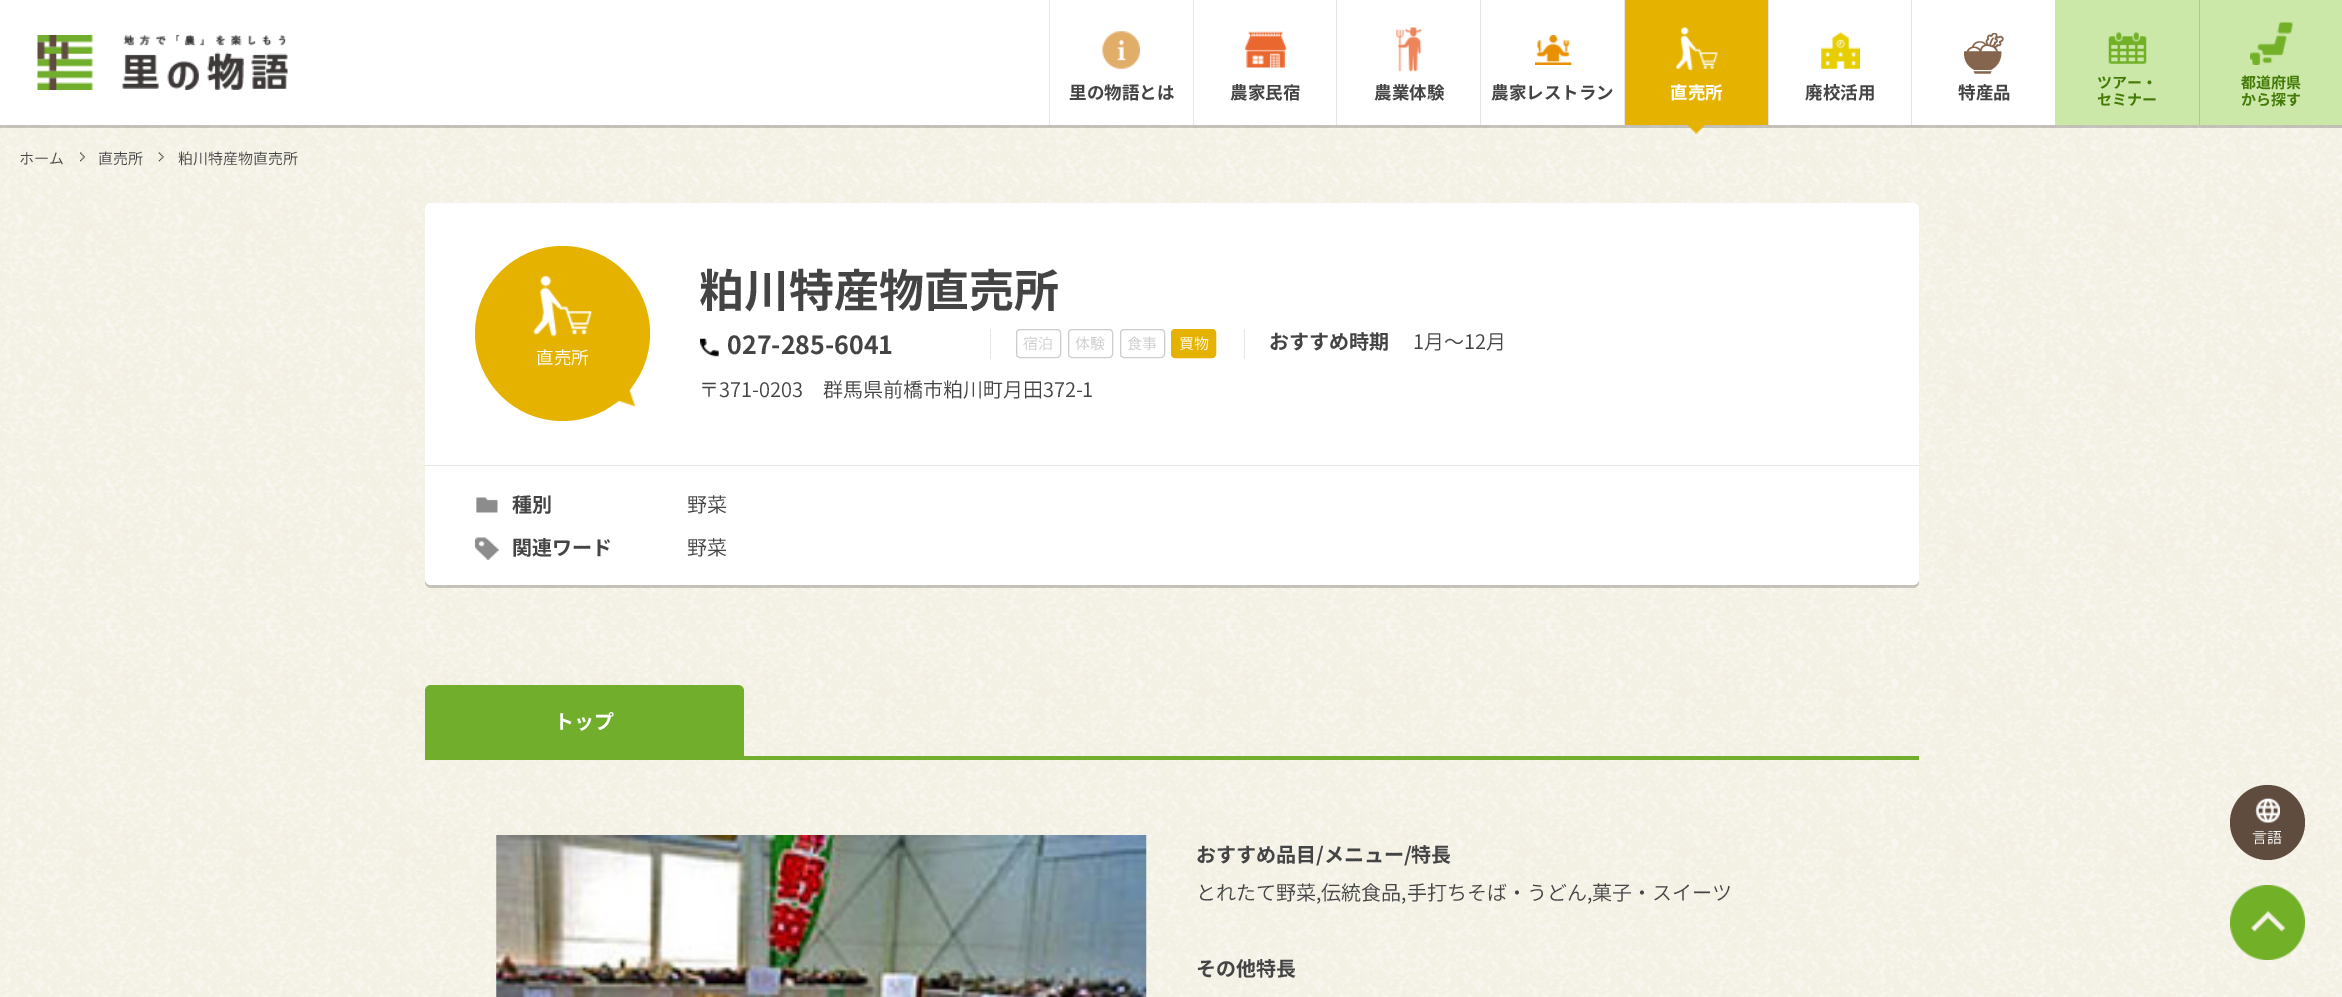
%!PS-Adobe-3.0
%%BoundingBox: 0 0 2342 997
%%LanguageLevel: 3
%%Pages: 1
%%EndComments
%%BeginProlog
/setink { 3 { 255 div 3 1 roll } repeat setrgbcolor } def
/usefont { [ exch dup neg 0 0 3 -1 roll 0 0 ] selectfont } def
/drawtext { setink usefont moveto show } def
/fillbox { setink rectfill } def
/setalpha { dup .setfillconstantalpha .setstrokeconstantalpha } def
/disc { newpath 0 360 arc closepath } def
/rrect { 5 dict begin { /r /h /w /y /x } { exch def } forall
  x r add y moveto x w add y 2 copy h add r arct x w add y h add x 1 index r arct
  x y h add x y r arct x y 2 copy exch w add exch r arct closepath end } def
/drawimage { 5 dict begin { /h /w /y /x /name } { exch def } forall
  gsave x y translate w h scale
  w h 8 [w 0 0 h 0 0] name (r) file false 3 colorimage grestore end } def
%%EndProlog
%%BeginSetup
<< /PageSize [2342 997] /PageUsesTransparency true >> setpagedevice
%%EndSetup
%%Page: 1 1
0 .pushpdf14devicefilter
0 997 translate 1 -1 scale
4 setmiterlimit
0 0 2342 997 255 255 255 fillbox
(assets/img12.rgb) 0 125 2342 872 drawimage
0.2 setalpha
0 0 0 setink
-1 0 moveto -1 128 lineto 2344 128 lineto 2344 0 lineto 2342 0 lineto 2342 125 lineto 0 125 lineto 0 0 lineto closepath fill
1 setalpha
(assets/img1.rgb) 37 35 252 55 drawimage
1049 0 1 125 229 229 229 fillbox
(assets/img2.rgb) 1102 31 38 38 drawimage
(里の物語とは) 1069 99 /NotoSansCJKJP-Bold 17.5 68 68 68 drawtext
1193 0 1 125 229 229 229 fillbox
(assets/img3.rgb) 1245 31 42 37 drawimage
(農家民宿) 1230 99 /NotoSansCJKJP-Bold 17.5 68 68 68 drawtext
1336 0 1 125 229 229 229 fillbox
(assets/img4.rgb) 1396 27 26 45 drawimage
(農業体験) 1374 99 /NotoSansCJKJP-Bold 17.5 68 68 68 drawtext
1480 0 1 125 229 229 229 fillbox
(assets/img5.rgb) 1535 35 37 30 drawimage
(農家レストラン) 1491 99 /NotoSansCJKJP-Bold 17.5 68 68 68 drawtext
1624 0 1 125 229 229 229 fillbox
1625 0 143 125 229 178 0 fillbox
(assets/img6.rgb) 1676 27 42 43 drawimage
(直売所) 1670 99 /NotoSansCJKJP-Bold 17.5 255 255 255 drawtext
(assets/img7.rgb) 1687 125 19 9 drawimage
1768 0 1 125 229 229 229 fillbox
(assets/img8.rgb) 1821 32 39 37 drawimage
(廃校活用) 1805 99 /NotoSansCJKJP-Bold 17.5 68 68 68 drawtext
1911 0 1 125 229 229 229 fillbox
(assets/img9.rgb) 1964 33 40 41 drawimage
(特産品) 1958 99 /NotoSansCJKJP-Bold 17.5 68 68 68 drawtext
2055 0 144 125 203 232 169 fillbox
(assets/img10.rgb) 2108 32 39 32 drawimage
(ツアー・) 2097 88 /NotoSansCJKJP-Bold 15 68 122 6 drawtext
(セミナー) 2097 105 /NotoSansCJKJP-Bold 15 68 122 6 drawtext
2199 0 1 125 169 210 120 fillbox
2200 0 142 125 203 232 169 fillbox
(assets/img11.rgb) 2250 22 43 43 drawimage
(都道府県) 2241 88 /NotoSansCJKJP-Bold 15 68 122 6 drawtext
(から探す) 2241 105 /NotoSansCJKJP-Bold 15 68 122 6 drawtext
(ホーム) 19 164 /NotoSansCJKJP-Light 15 68 68 68 drawtext
(assets/img13.rgb) 80 152 5 10 drawimage
(直売所) 98 164 /NotoSansCJKJP-Light 15 68 68 68 drawtext
(assets/img14.rgb) 158 152 6 10 drawimage
(粕川特産物直売所) 178 164 /NotoSansCJKJP-Light 15 68 68 68 drawtext
0.2 setalpha
0 0 0 setink
425 579 moveto 425 582 lineto 425 585 428 588 431 588 curveto 1913 588 lineto 1916 588 1919 585 1919 582 curveto 1919 209 lineto 1919 579 lineto 1919 582 1916 585 1912 585 curveto 431 585 lineto 428 585 425 582 425 579 curveto closepath fill
1 setalpha
255 255 255 setink
425 203 1494 382 6 rrect fill
425 465 1494 1 229 229 229 fillbox
229 178 0 setink
562.5 333.5 87.5 disc fill
(assets/img15.rgb) 533 276 59 61 drawimage
(直売所) 536 364 /NotoSansCJKJP-Light 17.5 255 255 255 drawtext
(assets/img16.rgb) 615 386 20 21 drawimage
(粕川特産物直売所) 699 307 /NotoSansCJKJP-Bold 45 68 68 68 drawtext
(assets/img17.rgb) 700 338 19 19 drawimage
990 329 1 30 229 229 229 fillbox
(027-285-6041) 727 354 /NotoSansCJKJP-Bold 25 68 68 68 drawtext
1244 329 1 30 229 229 229 fillbox
204 204 204 setink
1016.5 329.5 44 28 3.5 rrect stroke
(宿泊) 1023 349 /NotoSansCJKJP-Light 15 204 204 204 drawtext
1068.5 329.5 44 28 3.5 rrect stroke
(体験) 1075 349 /NotoSansCJKJP-Light 15 204 204 204 drawtext
1120.5 329.5 44 28 3.5 rrect stroke
(食事) 1127 349 /NotoSansCJKJP-Light 15 204 204 204 drawtext
229 178 0 setink
1171.5 329.5 44 28 3.5 rrect gsave fill grestore
stroke
(買物) 1179 349 /NotoSansCJKJP-Light 15 255 255 255 drawtext
(おすすめ時期) 1269 349 /NotoSansCJKJP-Bold 20 68 68 68 drawtext
(1月～12月) 1413 349 /NotoSansCJKJP-Light 20 68 68 68 drawtext
(〒371-0203　群馬県前橋市粕川町月田372-1) 699 397 /NotoSansCJKJP-Light 20 68 68 68 drawtext
(assets/img18.rgb) 476 497 22 16 drawimage
(種別) 512 512 /NotoSansCJKJP-Bold 20 68 68 68 drawtext
(野菜) 687 512 /NotoSansCJKJP-Light 20 68 68 68 drawtext
(assets/img19.rgb) 475 537 24 23 drawimage
(関連ワード) 512 555 /NotoSansCJKJP-Bold 20 68 68 68 drawtext
(野菜) 687 555 /NotoSansCJKJP-Light 20 68 68 68 drawtext
425 756 1494 4 113 174 44 fillbox
431 685 moveto 738 685 lineto 741.5 685 744 687.5 744 691 curveto 744 756 lineto 425 756 lineto 425 691 lineto 425 687.5 427.5 685 431 685 curveto closepath fill
(トップ) 554 729 /NotoSansCJKJP-Bold 20 255 255 255 drawtext
(assets/img20.rgb) 496 835 651 162 drawimage
(おすすめ品目/メニュー/特長) 1196 862 /NotoSansCJKJP-Bold 20 68 68 68 drawtext
(とれたて野菜,伝統食品,手打ちそば・うどん,菓子・スイーツ) 1196 900 /NotoSansCJKJP-Light 20 68 68 68 drawtext
(その他特長) 1196 976 /NotoSansCJKJP-Bold 20 68 68 68 drawtext
95 76 62 setink
2267.5 822.5 37.5 disc fill
(assets/img21.rgb) 2255 797 25 26 drawimage
(言語) 2252 843 /NotoSansCJKJP-Light 15 255 255 255 drawtext
(assets/img22.rgb) 2230 885 75 75 drawimage
.poppdf14devicefilter showpage
%%EOF
